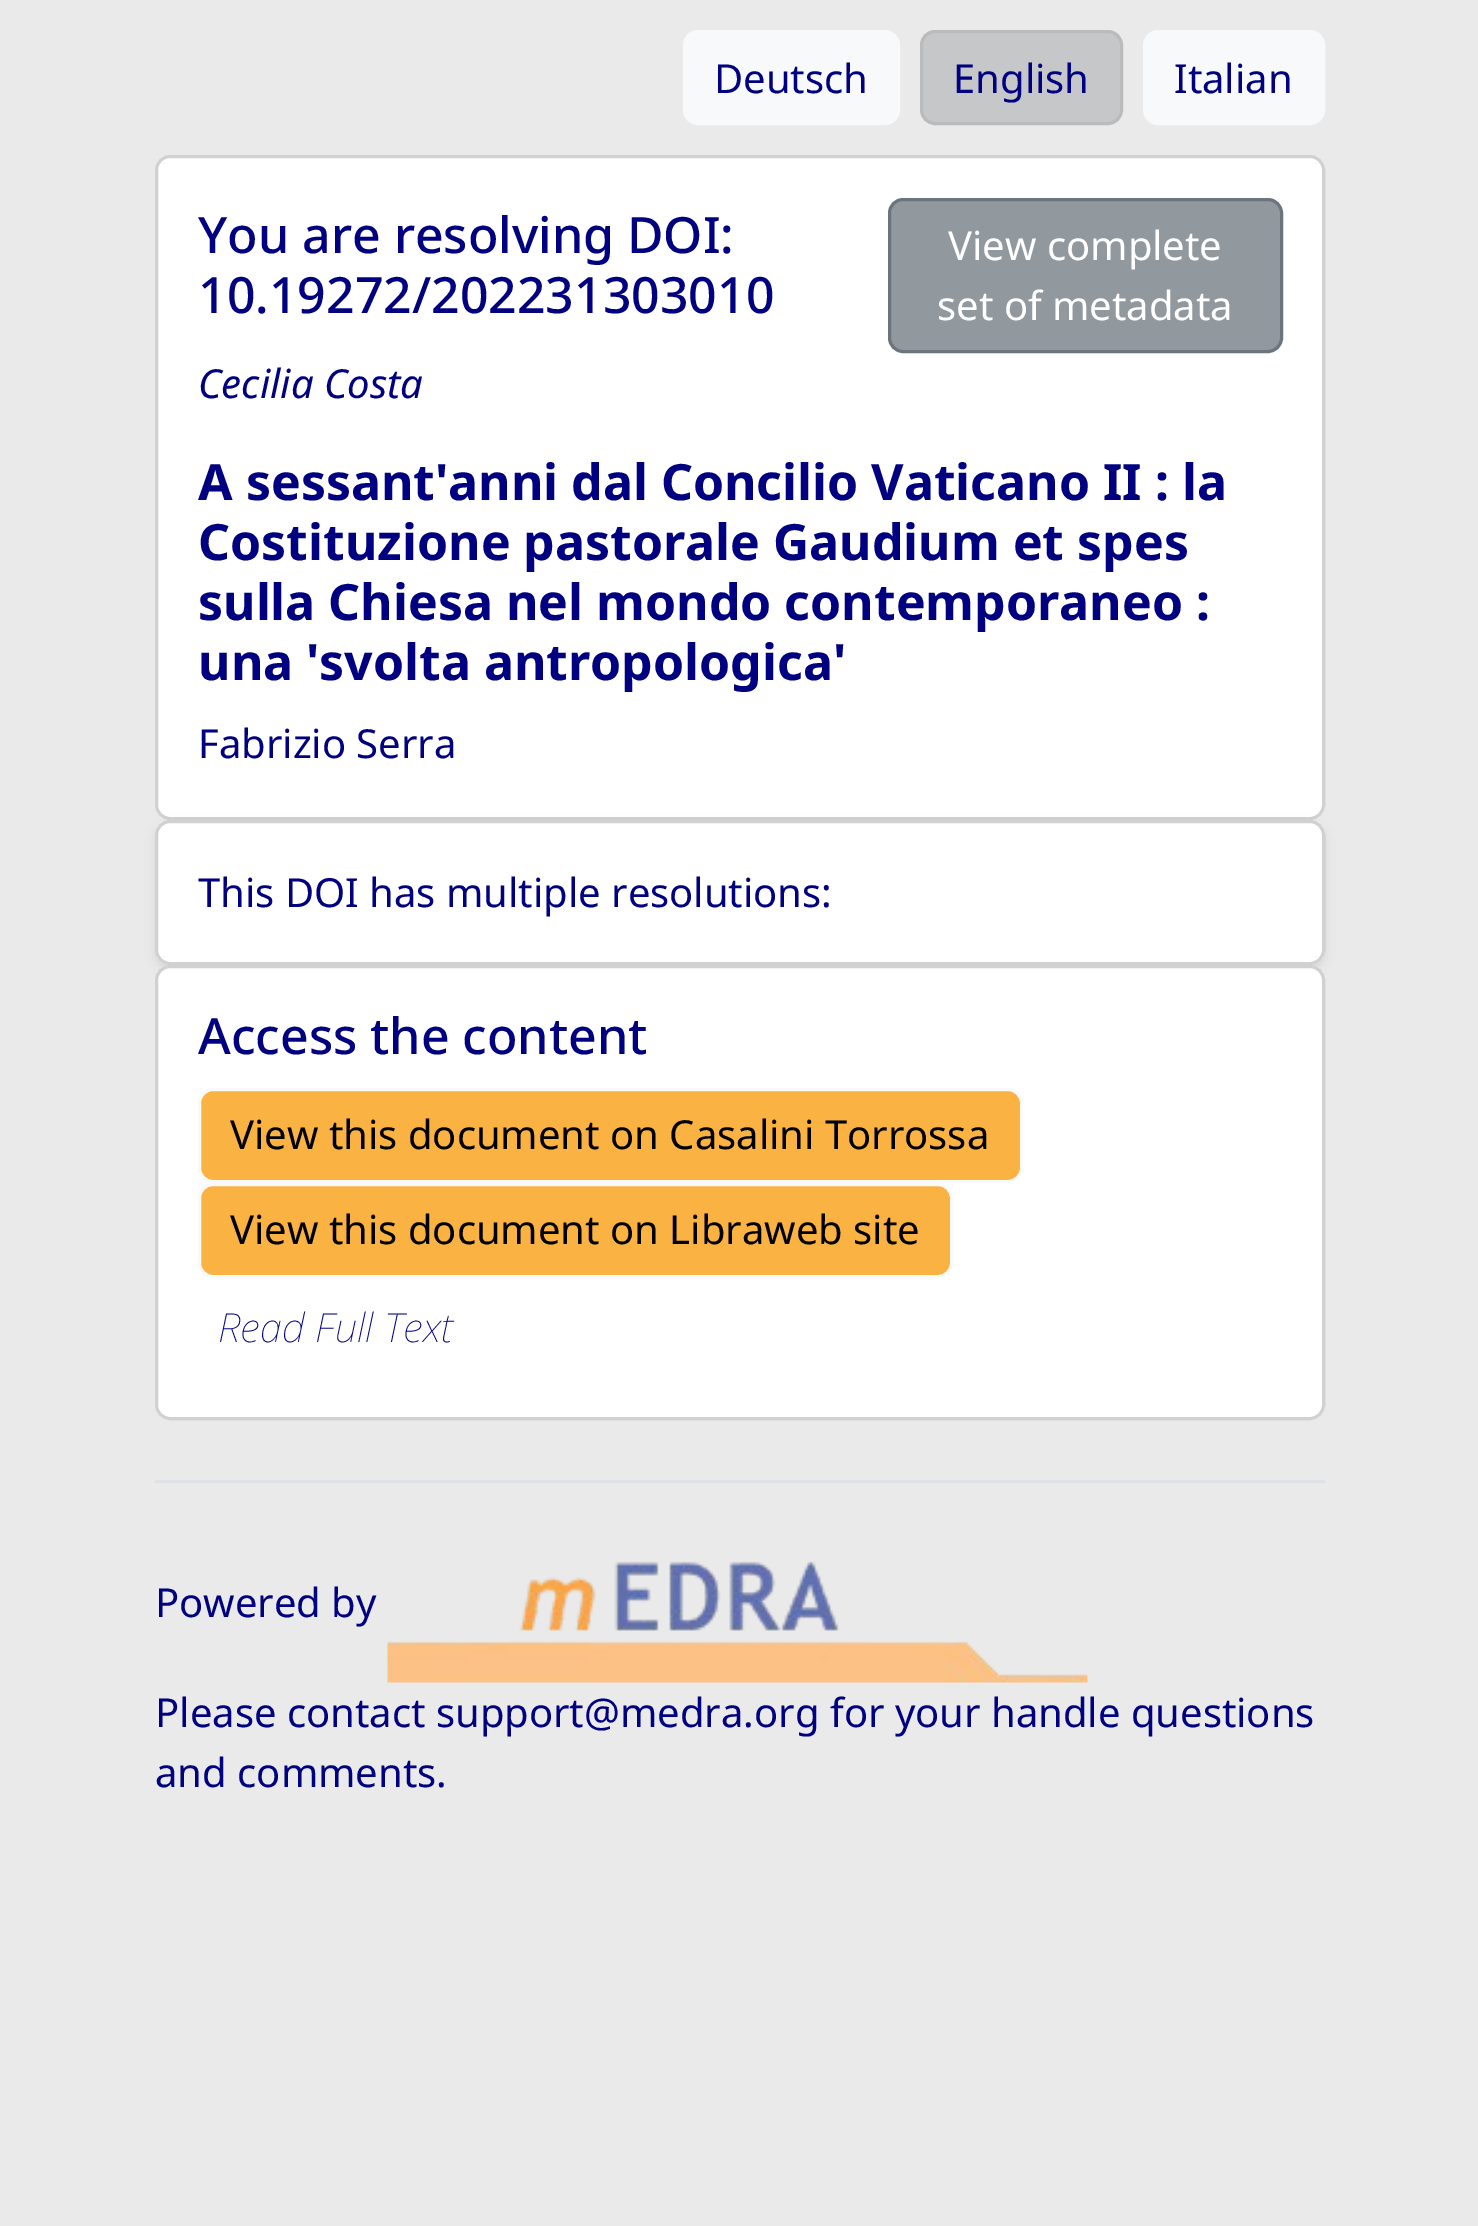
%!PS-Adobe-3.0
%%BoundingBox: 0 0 1478 2226
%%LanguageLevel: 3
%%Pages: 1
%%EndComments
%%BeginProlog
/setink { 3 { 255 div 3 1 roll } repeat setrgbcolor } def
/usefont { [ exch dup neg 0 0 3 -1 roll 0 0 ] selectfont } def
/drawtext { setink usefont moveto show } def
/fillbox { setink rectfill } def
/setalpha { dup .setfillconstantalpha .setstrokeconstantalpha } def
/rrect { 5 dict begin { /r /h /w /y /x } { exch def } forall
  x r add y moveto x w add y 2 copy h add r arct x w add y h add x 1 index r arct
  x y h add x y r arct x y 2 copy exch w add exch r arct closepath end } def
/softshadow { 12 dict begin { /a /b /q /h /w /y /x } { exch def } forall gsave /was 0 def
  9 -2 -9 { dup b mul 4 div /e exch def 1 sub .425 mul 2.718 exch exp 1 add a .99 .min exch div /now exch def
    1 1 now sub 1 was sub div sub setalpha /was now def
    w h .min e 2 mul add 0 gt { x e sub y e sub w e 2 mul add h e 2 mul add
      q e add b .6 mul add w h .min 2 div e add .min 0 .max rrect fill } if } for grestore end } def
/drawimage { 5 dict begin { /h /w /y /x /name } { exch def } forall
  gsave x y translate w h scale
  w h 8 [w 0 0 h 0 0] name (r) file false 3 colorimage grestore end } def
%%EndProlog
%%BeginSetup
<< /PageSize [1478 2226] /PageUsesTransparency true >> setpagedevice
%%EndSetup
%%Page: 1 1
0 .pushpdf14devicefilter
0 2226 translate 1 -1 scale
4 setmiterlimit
0 0 1478 2226 234 234 234 fillbox
248 249 250 setink
684.5 31.5 214 92 13.5 rrect gsave fill grestore
3 setlinewidth
stroke
(Deutsch) 714 93 /NotoSans-Regular 40 0 0 128 drawtext
198 199 200 setink
921.5 31.5 200 92 13.5 rrect gsave fill grestore
186 187 188 setink
stroke
(English) 953 93 /NotoSans-Regular 40 0 0 128 drawtext
248 249 250 setink
1144.5 31.5 179 92 13.5 rrect gsave fill grestore
stroke
(Italian) 1174 93 /NotoSans-Regular 40 0 0 128 drawtext
255 255 255 setink
155 155 1170 665 15 rrect fill
0.18 setalpha
0 0 0 setink
156.5 156.5 1167 662 13.5 rrect stroke
1 setalpha
(You are resolving DOI:) 198 253 /NotoSans-Medium 50 0 0 128 drawtext
(10.19272/202231303010) 198 313 /NotoSans-Medium 50 0 0 128 drawtext
145 152 158 setink
889.5 199.5 392 152 13.5 rrect gsave fill grestore
108 117 125 setink
stroke
(View complete) 948 260 /NotoSans-Regular 40 255 255 255 drawtext
(set of metadata) 937 320 /NotoSans-Regular 40 255 255 255 drawtext
(Cecilia Costa) 198 398 /NotoSans-Italic 40 0 0 128 drawtext
(A sessant'anni dal Concilio Vaticano II : la) 198 500 /NotoSans-Bold 50 0 0 128 drawtext
(Costituzione pastorale Gaudium et spes) 198 560 /NotoSans-Bold 50 0 0 128 drawtext
(sulla Chiesa nel mondo contemporaneo :) 198 620 /NotoSans-Bold 50 0 0 128 drawtext
(una 'svolta antropologica') 198 680 /NotoSans-Bold 50 0 0 128 drawtext
(Fabrizio Serra) 198 758 /NotoSans-Regular 40 0 0 128 drawtext
0 0 0 setink
155 825 1170 145 15 5 0.07 softshadow
255 255 255 setink
155 820 1170 145 15 rrect fill
0.18 setalpha
0 0 0 setink
156.5 821.5 1167 142 13.5 rrect stroke
1 setalpha
(This DOI has multiple resolutions:) 198 907 /NotoSans-Regular 40 0 0 128 drawtext
255 255 255 setink
155 965 1170 455 15 rrect fill
0.18 setalpha
0 0 0 setink
156.5 966.5 1167 452 13.5 rrect stroke
1 setalpha
(Access the content) 198 1054 /NotoSans-Medium 50 0 0 128 drawtext
250 178 66 setink
199.5 1089.5 822 92 13.5 rrect gsave fill grestore
248 249 250 setink
stroke
(View this document on Casalini Torrossa) 230 1149 /NotoSans-Regular 40 0 0 0 drawtext
250 178 66 setink
199.5 1184.5 752 92 13.5 rrect gsave fill grestore
248 249 250 setink
stroke
(View this document on Libraweb site) 230 1244 /NotoSans-Regular 40 0 0 0 drawtext
(Read Full Text) 218 1342 /NotoSans-ThinItalic 40 0 0 128 drawtext
155 1480 1170 3 222 226 230 fillbox
(Powered by) 155 1617 /NotoSans-Regular 40 0 0 128 drawtext
(assets/img1.rgb) 387 1561 701 122 drawimage
(Please contact support@medra.org for your handle questions) 155 1727 /NotoSans-Regular 40 0 0 128 drawtext
(and comments.) 155 1787 /NotoSans-Regular 40 0 0 128 drawtext
.poppdf14devicefilter showpage
%%EOF
